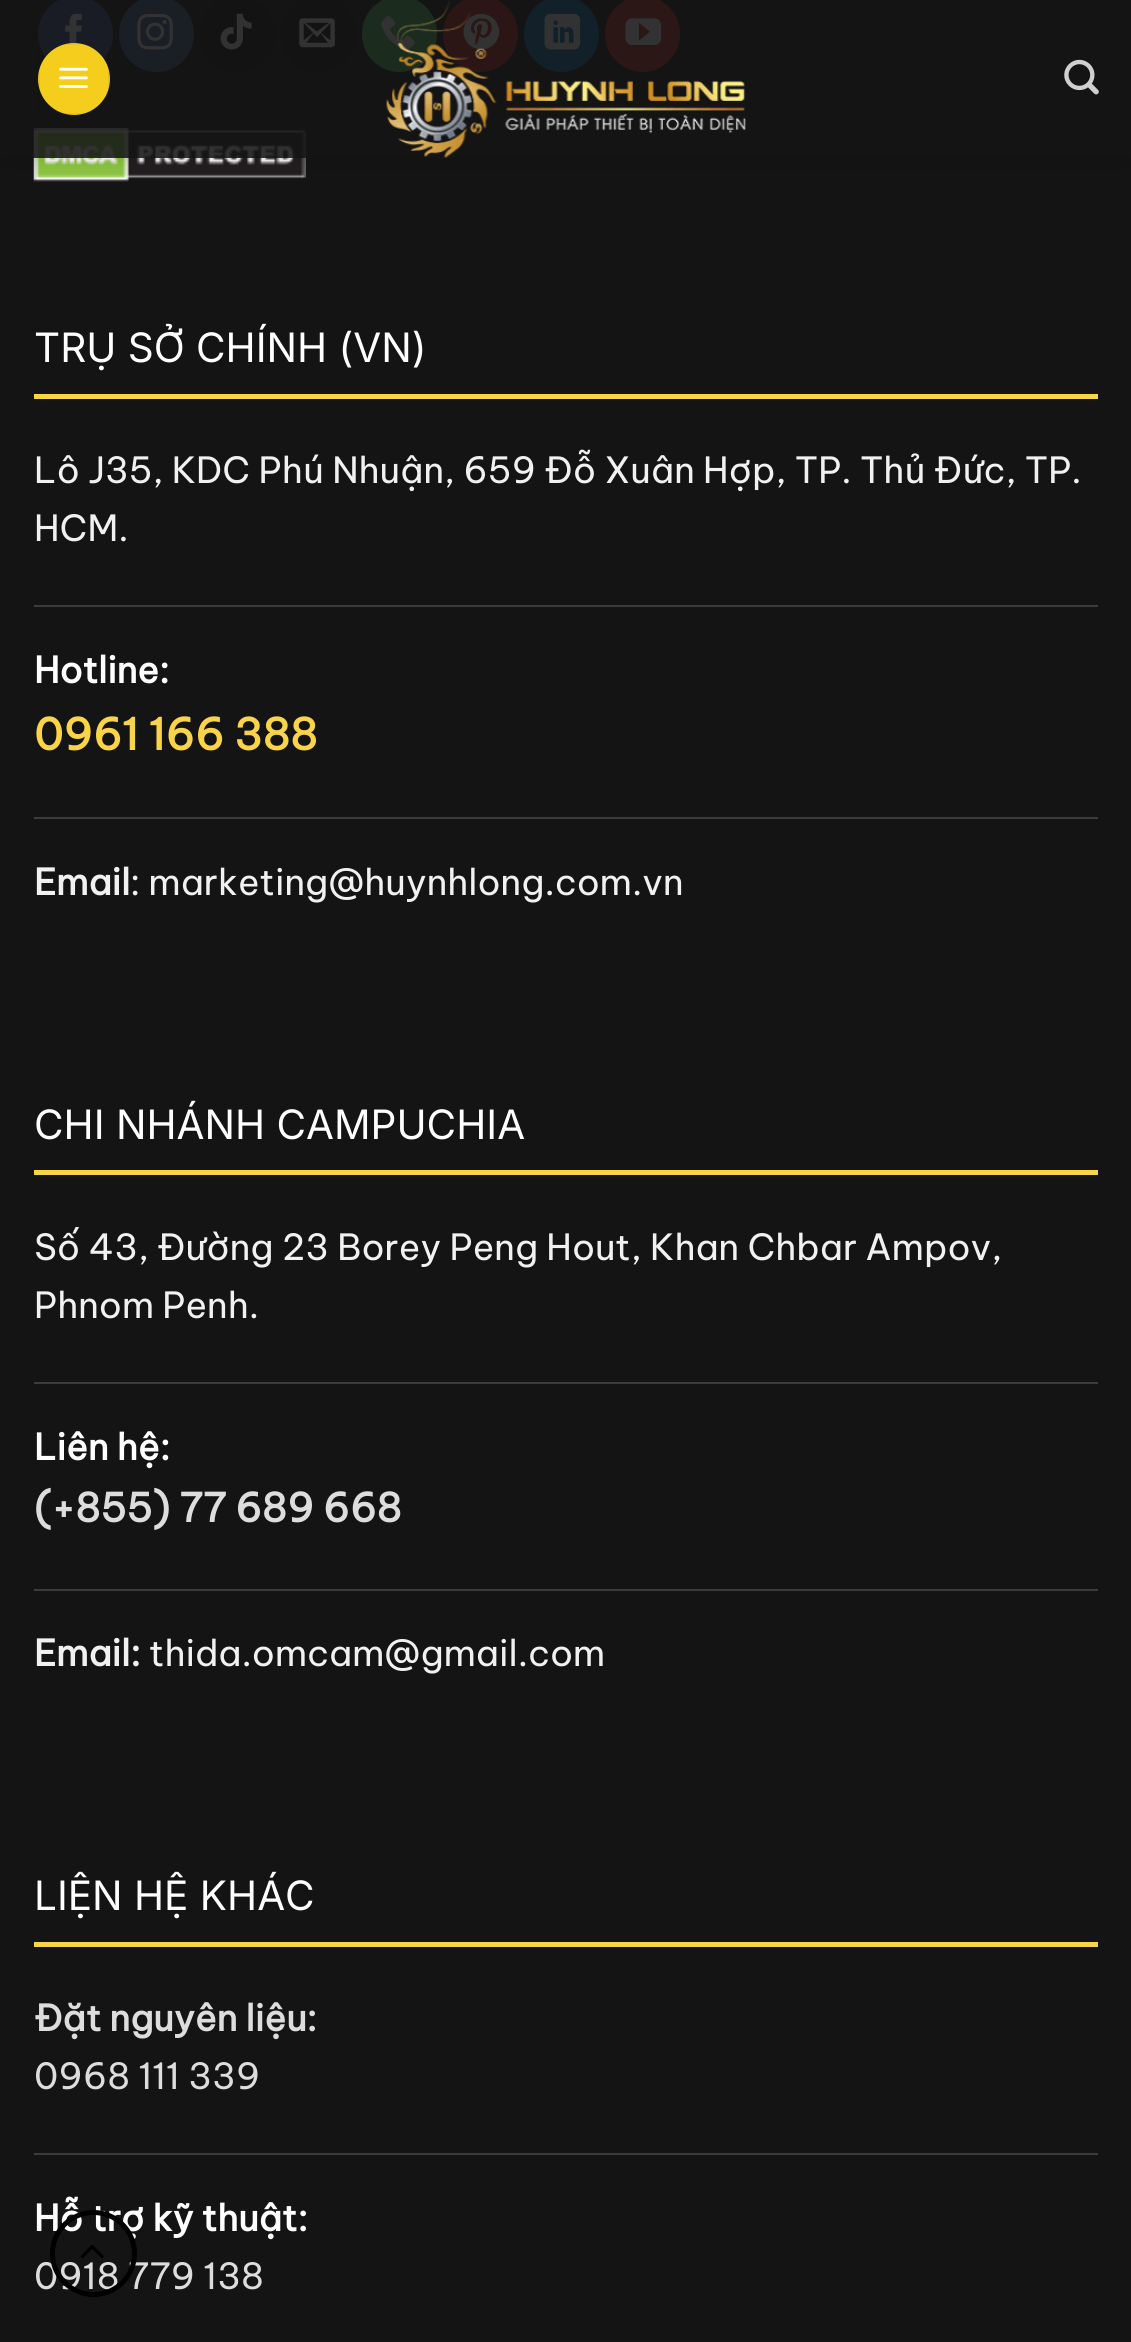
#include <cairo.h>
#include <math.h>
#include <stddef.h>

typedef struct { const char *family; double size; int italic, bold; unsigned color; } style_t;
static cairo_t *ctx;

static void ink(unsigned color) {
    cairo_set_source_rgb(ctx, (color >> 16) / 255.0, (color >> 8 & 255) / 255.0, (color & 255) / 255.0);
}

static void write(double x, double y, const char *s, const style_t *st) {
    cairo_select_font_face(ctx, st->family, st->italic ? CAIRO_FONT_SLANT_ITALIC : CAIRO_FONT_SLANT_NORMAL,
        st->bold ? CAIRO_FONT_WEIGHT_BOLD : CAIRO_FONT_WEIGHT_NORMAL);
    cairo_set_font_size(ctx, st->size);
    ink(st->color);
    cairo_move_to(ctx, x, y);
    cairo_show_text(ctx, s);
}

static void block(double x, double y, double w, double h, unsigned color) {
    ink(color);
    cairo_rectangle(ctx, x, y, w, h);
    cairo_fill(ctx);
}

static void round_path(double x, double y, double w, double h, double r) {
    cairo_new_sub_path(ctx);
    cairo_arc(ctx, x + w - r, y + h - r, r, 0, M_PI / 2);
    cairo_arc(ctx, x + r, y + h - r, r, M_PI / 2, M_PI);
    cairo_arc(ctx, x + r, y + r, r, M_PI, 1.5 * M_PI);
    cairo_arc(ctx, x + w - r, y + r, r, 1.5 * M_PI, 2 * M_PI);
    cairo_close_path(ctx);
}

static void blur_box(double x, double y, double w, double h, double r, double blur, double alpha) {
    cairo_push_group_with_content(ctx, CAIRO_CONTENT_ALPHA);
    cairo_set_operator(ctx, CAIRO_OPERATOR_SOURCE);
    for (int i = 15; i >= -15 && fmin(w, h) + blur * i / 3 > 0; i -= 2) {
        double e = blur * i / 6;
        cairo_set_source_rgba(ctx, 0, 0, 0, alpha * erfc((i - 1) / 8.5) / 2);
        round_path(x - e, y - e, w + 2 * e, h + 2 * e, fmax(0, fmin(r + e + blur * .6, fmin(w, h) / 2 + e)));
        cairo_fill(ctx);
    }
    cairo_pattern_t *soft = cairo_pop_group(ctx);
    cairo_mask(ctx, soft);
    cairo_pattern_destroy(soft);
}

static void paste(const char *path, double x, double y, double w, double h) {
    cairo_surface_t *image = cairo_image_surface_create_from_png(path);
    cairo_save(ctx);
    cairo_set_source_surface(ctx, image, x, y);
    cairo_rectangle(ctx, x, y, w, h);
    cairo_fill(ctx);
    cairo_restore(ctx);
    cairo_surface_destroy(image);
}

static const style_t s1 = {"Inter", 40.5, 0, 0, 0xffffff};
static const style_t s2 = {"Be Vietnam Pro", 36, 0, 0, 0xf1f1f1};
static const style_t s3 = {"Be Vietnam Pro", 36, 0, 1, 0xffffff};
static const style_t s4 = {"Be Vietnam Pro", 43.25, 0, 1, 0xf9d448};
static const style_t s5 = {"Be Vietnam Pro", 36, 0, 1, 0xf1f1f1};
static const style_t s6 = {"Be Vietnam Pro", 39.5, 0, 1, 0xdddddd};
static const style_t s7 = {"Be Vietnam Pro", 36, 0, 1, 0xdddddd};
static const style_t s8 = {"Be Vietnam Pro", 36, 0, 0, 0xdddddd};

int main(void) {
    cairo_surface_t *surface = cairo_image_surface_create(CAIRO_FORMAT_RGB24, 1131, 2342);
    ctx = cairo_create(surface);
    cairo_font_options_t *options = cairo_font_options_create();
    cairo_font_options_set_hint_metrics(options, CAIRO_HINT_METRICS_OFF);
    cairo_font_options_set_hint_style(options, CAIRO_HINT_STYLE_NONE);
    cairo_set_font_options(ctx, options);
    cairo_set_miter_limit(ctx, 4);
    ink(0x141414);
    cairo_paint(ctx);
    ink(0x3a589d);
    round_path(39, -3, 73, 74, 36.5);
    cairo_fill_preserve(ctx);
    cairo_stroke(ctx);
    paste("pic4.png", 65, 13, 17, 31);
    ink(0x3b6994);
    round_path(120, -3, 73, 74, 36.5);
    cairo_fill_preserve(ctx);
    cairo_stroke(ctx);
    paste("pic5.png", 137, 13, 36, 37);
    ink(0x111111);
    round_path(200, -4, 75, 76, 37.5);
    cairo_fill(ctx);
    paste("pic6.png", 220, 13, 32, 37);
    round_path(281, -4, 75, 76, 37.5);
    cairo_fill(ctx);
    paste("pic7.png", 299, 18, 36, 30);
    ink(0x51cb5a);
    round_path(363, -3, 73, 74, 36.5);
    cairo_fill_preserve(ctx);
    cairo_stroke(ctx);
    paste("pic8.png", 381, 16, 34, 34);
    ink(0xcb2320);
    round_path(444, -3, 73, 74, 36.5);
    cairo_fill_preserve(ctx);
    cairo_stroke(ctx);
    paste("pic9.png", 463, 13, 37, 37);
    ink(0x0072b7);
    round_path(525, -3, 73, 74, 36.5);
    cairo_fill_preserve(ctx);
    cairo_stroke(ctx);
    paste("pic10.png", 544, 13, 37, 37);
    ink(0xc33223);
    round_path(606, -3, 73, 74, 36.5);
    cairo_fill_preserve(ctx);
    cairo_stroke(ctx);
    paste("pic11.png", 625, 18, 37, 27);
    paste("pic12.png", 33, 128, 273, 54);
    cairo_save(ctx);
    cairo_set_fill_rule(ctx, CAIRO_FILL_RULE_EVEN_ODD);
    cairo_new_path(ctx);
    cairo_move_to(ctx, 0, 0);
    cairo_line_to(ctx, 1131, 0);
    cairo_line_to(ctx, 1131, 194);
    cairo_line_to(ctx, 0, 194);
    cairo_close_path(ctx);
    cairo_move_to(ctx, 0, 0);
    cairo_line_to(ctx, 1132, 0);
    cairo_line_to(ctx, 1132, 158);
    cairo_line_to(ctx, 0, 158);
    cairo_close_path(ctx);
    cairo_clip(ctx);
    ink(0x000000);
    blur_box(2, 2, 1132, 158, 0, 11, 0.15);
    cairo_restore(ctx);
    cairo_set_source_rgba(ctx, 0.078, 0.078, 0.078, 0.87);
    cairo_rectangle(ctx, 33, 0, 647, 158);
    cairo_fill(ctx);
    ink(0xf5ce1d);
    cairo_arc(ctx, 74, 79, 36, 0, 2 * M_PI);
    cairo_fill(ctx);
    cairo_rectangle(ctx, 39, 44, 70, 70);
    cairo_set_source_rgba(ctx, 0, 0, 0, 0.05);
    cairo_stroke(ctx);
    paste("pic1.png", 59, 67, 29, 21);
    paste("pic2.png", 386, 1, 360, 157);
    paste("pic3.png", 1064, 59, 35, 36);
    block(34, 394, 1064, 5, 0xf9d448);
    write(34, 362, "TRỤ SỞ CHÍNH (VN)", &s1);
    write(34, 483, "Lô J35, KDC Phú Nhuận, 659 Đỗ Xuân Hợp, TP. Thủ Đức, TP.", &s2);
    write(34, 541, "HCM.", &s2);
    block(34, 605, 1064, 2, 0x3c3c3c);
    write(34, 683, "Hotline:", &s3);
    write(34, 750, "0961 166 388", &s4);
    block(34, 817, 1064, 2, 0x3c3c3c);
    write(34, 895, "Email", &s5);
    write(130, 895, ": marketing@huynhlong.com.vn", &s2);
    block(34, 1170, 1064, 5, 0xf9d448);
    write(34, 1139, "CHI NHÁNH CAMPUCHIA", &s1);
    write(34, 1260, "Số 43, Đường 23 Borey Peng Hout, Khan Chbar Ampov,", &s2);
    write(34, 1318, "Phnom Penh.", &s2);
    block(34, 1382, 1064, 2, 0x3c3c3c);
    write(34, 1460, "Liên hệ:", &s3);
    write(34, 1522, "(+855) 77 689 668", &s6);
    block(34, 1589, 1064, 2, 0x3c3c3c);
    write(34, 1666, "Email:", &s5);
    write(149, 1666, "thida.omcam@gmail.com", &s2);
    block(34, 1942, 1064, 5, 0xf9d448);
    write(34, 1910, "LIỆN HỆ KHÁC", &s1);
    write(34, 2031, "Đặt nguyên liệu:", &s7);
    write(34, 2089, "0968 111 339", &s8);
    block(34, 2153, 1064, 2, 0x3c3c3c);
    write(34, 2231, "Hỗ trợ kỹ thuật:", &s3);
    write(34, 2289, "0918 779 138", &s8);
    cairo_new_path(ctx);
    cairo_arc(ctx, 93.5, 2253.5, 41, 0, 2 * M_PI);
    ink(0x000000);
    cairo_set_line_width(ctx, 5);
    cairo_stroke(ctx);
    paste("pic13.png", 80, 2245, 24, 14);
    cairo_surface_write_to_png(surface, "screenshot.png");
    cairo_font_options_destroy(options);
    cairo_destroy(ctx);
    cairo_surface_destroy(surface);
    return 0;
}
